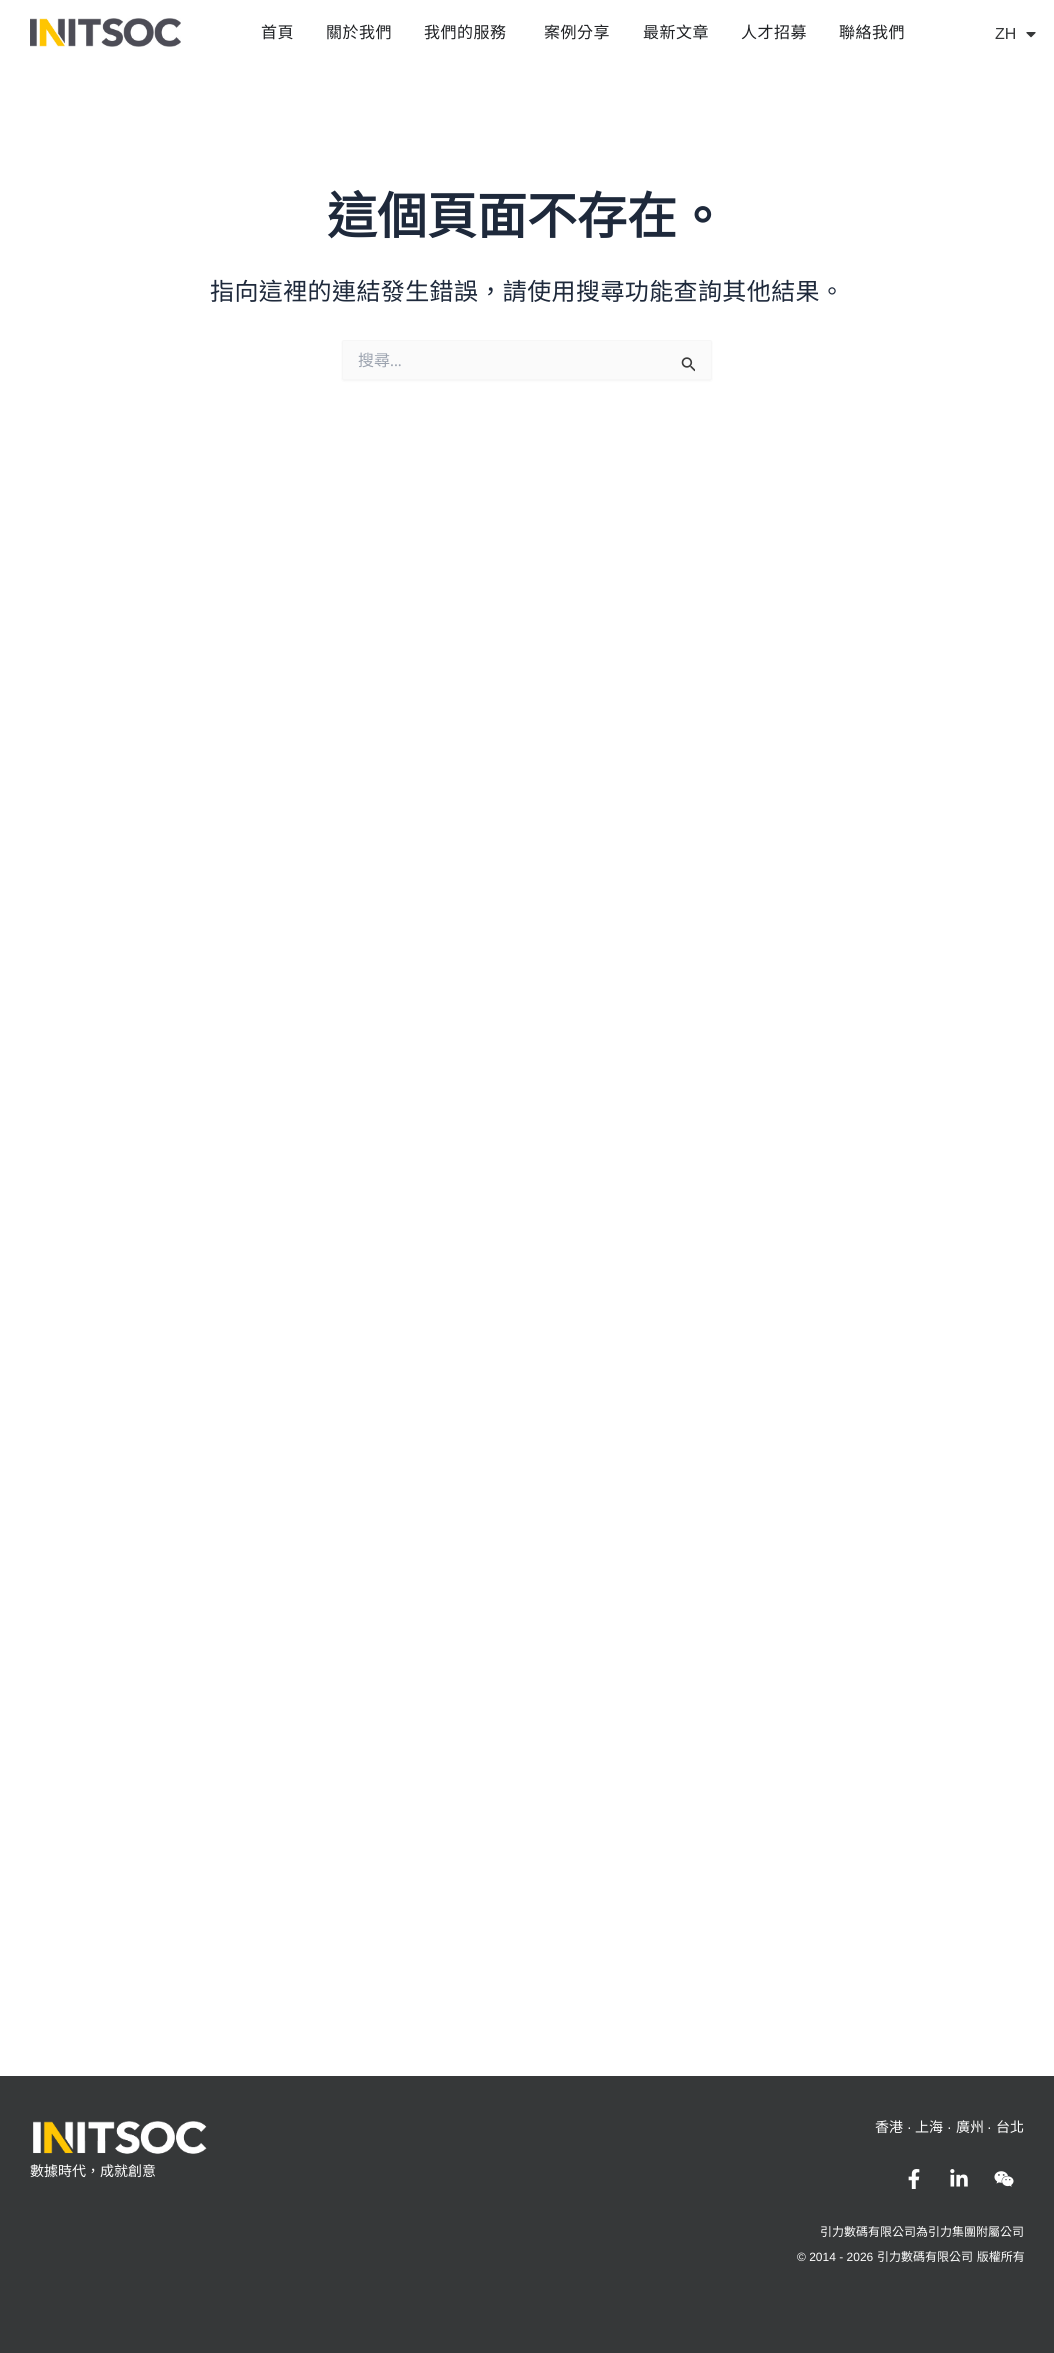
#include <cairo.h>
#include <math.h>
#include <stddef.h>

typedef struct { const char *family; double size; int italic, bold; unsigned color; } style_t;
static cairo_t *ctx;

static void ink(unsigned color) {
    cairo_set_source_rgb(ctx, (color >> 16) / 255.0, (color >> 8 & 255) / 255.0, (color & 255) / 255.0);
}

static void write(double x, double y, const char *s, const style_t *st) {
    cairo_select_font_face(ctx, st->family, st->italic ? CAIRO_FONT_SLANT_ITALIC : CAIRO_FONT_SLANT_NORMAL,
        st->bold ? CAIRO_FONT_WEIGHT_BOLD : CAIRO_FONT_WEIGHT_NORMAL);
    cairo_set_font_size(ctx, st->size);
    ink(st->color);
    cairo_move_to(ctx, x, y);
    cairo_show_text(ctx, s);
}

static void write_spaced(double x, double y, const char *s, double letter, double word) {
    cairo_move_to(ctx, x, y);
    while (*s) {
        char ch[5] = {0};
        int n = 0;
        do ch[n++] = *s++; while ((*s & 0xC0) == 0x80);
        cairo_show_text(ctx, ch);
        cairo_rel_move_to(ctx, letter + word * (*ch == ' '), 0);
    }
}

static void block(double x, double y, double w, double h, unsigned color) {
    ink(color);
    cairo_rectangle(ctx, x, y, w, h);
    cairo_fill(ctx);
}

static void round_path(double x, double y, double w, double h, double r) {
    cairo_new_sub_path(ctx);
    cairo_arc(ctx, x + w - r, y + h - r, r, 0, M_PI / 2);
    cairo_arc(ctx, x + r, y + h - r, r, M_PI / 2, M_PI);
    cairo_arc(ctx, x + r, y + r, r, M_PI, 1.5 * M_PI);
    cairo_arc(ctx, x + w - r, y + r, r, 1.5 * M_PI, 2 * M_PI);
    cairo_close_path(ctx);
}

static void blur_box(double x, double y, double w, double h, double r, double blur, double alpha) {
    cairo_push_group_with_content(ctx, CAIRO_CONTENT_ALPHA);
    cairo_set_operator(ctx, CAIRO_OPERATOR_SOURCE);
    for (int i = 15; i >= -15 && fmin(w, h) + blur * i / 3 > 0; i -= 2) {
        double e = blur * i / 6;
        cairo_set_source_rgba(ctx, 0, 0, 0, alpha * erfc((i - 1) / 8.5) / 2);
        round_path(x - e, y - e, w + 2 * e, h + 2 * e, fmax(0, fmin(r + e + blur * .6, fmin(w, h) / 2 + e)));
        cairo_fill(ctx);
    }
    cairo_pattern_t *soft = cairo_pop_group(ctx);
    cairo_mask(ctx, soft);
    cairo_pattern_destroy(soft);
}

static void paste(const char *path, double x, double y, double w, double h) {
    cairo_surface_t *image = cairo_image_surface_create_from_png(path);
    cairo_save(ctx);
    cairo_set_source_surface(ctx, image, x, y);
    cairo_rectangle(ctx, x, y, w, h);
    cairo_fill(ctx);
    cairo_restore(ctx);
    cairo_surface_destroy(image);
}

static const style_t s1 = {"Liberation Sans", 16, 0, 0, 0x363839};
static const style_t s2 = {"Noto Sans CJK TC", 50, 0, 1, 0x1e293b};
static const style_t s3 = {"Noto Sans CJK TC", 16, 0, 0, 0x9ca3af};
static const style_t s4 = {"Lora", 16, 0, 0, 0x9ca3af};
static const style_t s5 = {"Noto Sans CJK TC", 14, 0, 0, 0xffffff};
static const style_t s6 = {"Liberation Sans", 14, 0, 0, 0xffffff};
static const style_t s7 = {"Noto Sans CJK TC", 12, 0, 0, 0xffffff};
static const style_t s8 = {"Liberation Sans", 12, 0, 0, 0xffffff};

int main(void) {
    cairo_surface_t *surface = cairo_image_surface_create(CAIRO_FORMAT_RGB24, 1054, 2353);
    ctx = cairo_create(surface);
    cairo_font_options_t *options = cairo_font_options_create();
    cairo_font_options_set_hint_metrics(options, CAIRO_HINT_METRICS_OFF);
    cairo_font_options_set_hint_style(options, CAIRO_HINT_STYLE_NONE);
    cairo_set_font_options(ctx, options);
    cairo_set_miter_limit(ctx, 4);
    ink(0xffffff);
    cairo_paint(ctx);
    paste("pic1.png", 30, 18, 151, 29);
    cairo_select_font_face(ctx, "Noto Sans CJK TC", CAIRO_FONT_SLANT_NORMAL, CAIRO_FONT_WEIGHT_NORMAL);
    cairo_set_font_size(ctx, 16);
    ink(0x1f2124);
    write_spaced(261, 38, "首頁", 0.5, 0);
    write_spaced(326, 38, "關於我們", 0.5, 0);
    write_spaced(424, 38, "我們的服務", 0.5, 0);
    write_spaced(544, 38, "案例分享", 0.5, 0);
    write_spaced(643, 38, "最新文章", 0.5, 0);
    write_spaced(741, 38, "人才招募", 0.5, 0);
    write_spaced(839, 38, "聯絡我們", 0.5, 0);
    write(995, 39, "ZH", &s1);
    paste("pic2.png", 1026, 32, 10, 6);
    write(327, 234, "這個頁面不存在。", &s2);
    cairo_select_font_face(ctx, "Noto Sans CJK TC", CAIRO_FONT_SLANT_NORMAL, CAIRO_FONT_WEIGHT_NORMAL);
    cairo_set_font_size(ctx, 24);
    write_spaced(210, 300, "指向這裡的連結發生錯誤，請使用搜尋功能查詢其他結果。", 0.4, 0);
    ink(0x000000);
    blur_box(342, 341, 370, 40, 2, 1, 0.05);
    ink(0xfafafa);
    round_path(342.5, 340.5, 369, 39, 1.5);
    cairo_fill_preserve(ctx);
    ink(0xf6f6f6);
    cairo_set_line_width(ctx, 1);
    cairo_stroke(ctx);
    write(358, 366, "搜尋", &s3);
    write(390, 366, "...", &s4);
    paste("pic3.png", 681, 357, 14, 15);
    block(0, 2076, 1054, 277, 0x363839);
    paste("pic4.png", 33, 2121, 174, 33);
    write(30, 2176, "數據時代，成就創意", &s5);
    write(875, 2132, "香港", &s5);
    write(907, 2132, "·", &s6);
    write(915, 2132, "上海", &s5);
    write(947, 2132, "·", &s6);
    write(956, 2132, "廣州", &s5);
    write(987, 2132, "·", &s6);
    write(996, 2132, "台北", &s5);
    paste("pic5.png", 908, 2169, 12, 20);
    paste("pic6.png", 950, 2169, 18, 18);
    paste("pic7.png", 994, 2171, 20, 16);
    write(820, 2236, "引力數碼有限公司為引力集團附屬公司", &s7);
    write(797, 2261, "© 2014 - 2026", &s8);
    cairo_select_font_face(ctx, "Noto Sans CJK TC", CAIRO_FONT_SLANT_NORMAL, CAIRO_FONT_WEIGHT_NORMAL);
    write_spaced(877, 2261, "引力數碼有限公司 版權所有", 0, 1);
    cairo_surface_write_to_png(surface, "screenshot.png");
    cairo_font_options_destroy(options);
    cairo_destroy(ctx);
    cairo_surface_destroy(surface);
    return 0;
}
